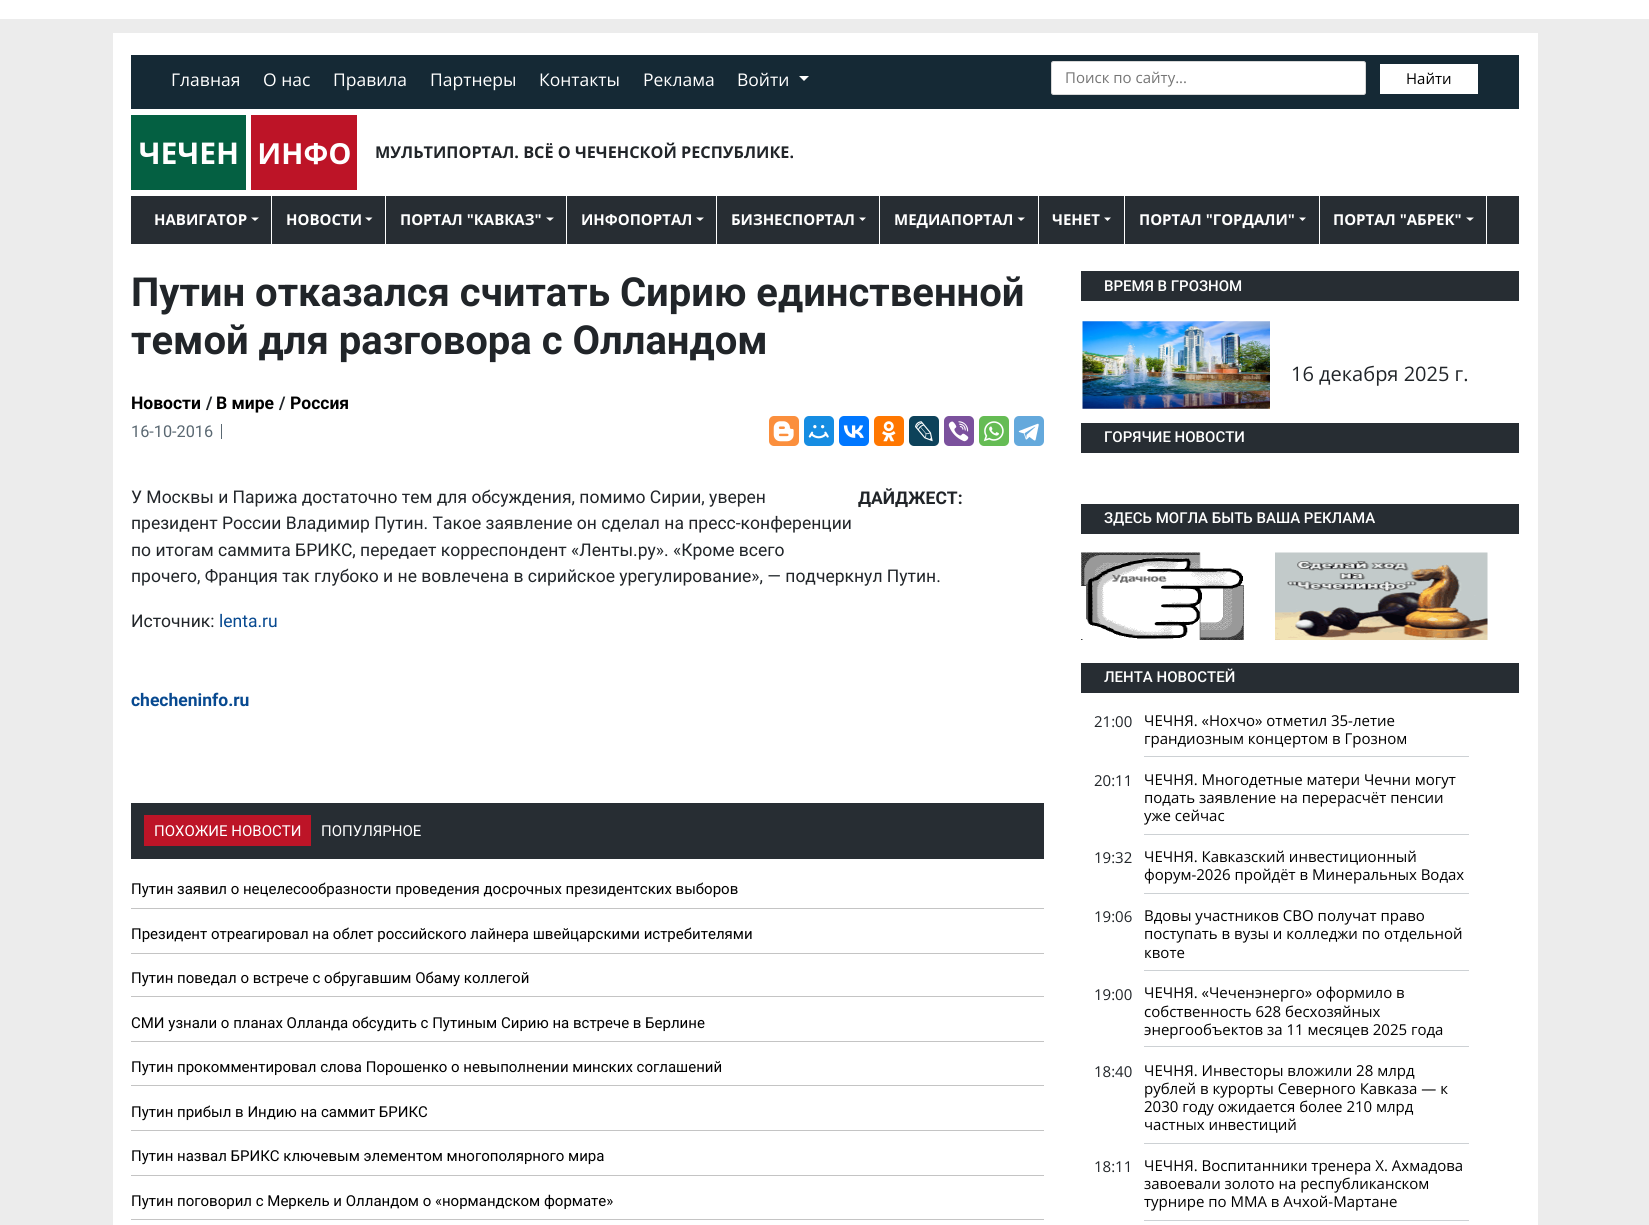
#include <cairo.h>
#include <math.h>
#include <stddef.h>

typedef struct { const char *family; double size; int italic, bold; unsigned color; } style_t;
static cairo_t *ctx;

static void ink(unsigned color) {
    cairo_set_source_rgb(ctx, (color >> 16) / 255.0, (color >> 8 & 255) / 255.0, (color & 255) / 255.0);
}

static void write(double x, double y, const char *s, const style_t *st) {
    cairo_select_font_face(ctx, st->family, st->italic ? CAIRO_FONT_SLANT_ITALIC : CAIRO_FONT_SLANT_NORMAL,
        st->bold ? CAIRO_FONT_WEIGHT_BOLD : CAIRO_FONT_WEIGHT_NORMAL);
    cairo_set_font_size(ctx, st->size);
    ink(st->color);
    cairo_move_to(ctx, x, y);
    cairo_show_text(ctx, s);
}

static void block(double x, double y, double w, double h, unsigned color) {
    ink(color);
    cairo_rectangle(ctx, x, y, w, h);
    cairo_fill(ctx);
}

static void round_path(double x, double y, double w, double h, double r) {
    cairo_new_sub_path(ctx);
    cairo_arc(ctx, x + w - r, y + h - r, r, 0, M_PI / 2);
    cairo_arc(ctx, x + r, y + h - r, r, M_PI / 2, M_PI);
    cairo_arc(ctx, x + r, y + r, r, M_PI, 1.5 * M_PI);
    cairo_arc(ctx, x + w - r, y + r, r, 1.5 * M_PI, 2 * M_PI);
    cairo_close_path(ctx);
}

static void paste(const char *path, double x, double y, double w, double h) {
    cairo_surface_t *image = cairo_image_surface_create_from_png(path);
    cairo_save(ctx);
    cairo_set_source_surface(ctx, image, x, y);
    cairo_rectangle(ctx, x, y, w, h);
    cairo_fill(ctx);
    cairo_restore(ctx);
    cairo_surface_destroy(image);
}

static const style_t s1 = {"Open Sans", 17.5, 0, 0, 0xffffff};
static const style_t s2 = {"Open Sans", 15, 0, 0, 0x757575};
static const style_t s3 = {"Open Sans", 15, 0, 0, 0x000000};
static const style_t s4 = {"Open Sans", 16.25, 0, 1, 0x212529};
static const style_t s5 = {"Open Sans", 15, 0, 1, 0xffffff};
static const style_t s6 = {"Roboto", 40, 0, 1, 0x212529};
static const style_t s7 = {"Roboto", 17.5, 0, 1, 0x000000};
static const style_t s8 = {"Roboto", 17.5, 0, 1, 0x212529};
static const style_t s9 = {"Roboto", 16.25, 0, 0, 0x5a6872};
static const style_t s10 = {"Roboto", 17.5, 0, 0, 0x212529};
static const style_t s11 = {"Roboto", 17.5, 0, 0, 0x074990};
static const style_t s12 = {"Roboto", 17.5, 0, 1, 0x074990};
static const style_t s13 = {"Roboto", 15, 0, 0, 0xffffff};
static const style_t s14 = {"Roboto", 15, 0, 0, 0x000000};
static const style_t s15 = {"Roboto Medium", 15, 0, 0, 0xffffff};
static const style_t s16 = {"Open Sans", 20, 0, 0, 0x212529};
static const style_t s17 = {"Open Sans", 15, 0, 0, 0x212529};

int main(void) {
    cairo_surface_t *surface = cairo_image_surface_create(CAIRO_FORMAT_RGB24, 1649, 1225);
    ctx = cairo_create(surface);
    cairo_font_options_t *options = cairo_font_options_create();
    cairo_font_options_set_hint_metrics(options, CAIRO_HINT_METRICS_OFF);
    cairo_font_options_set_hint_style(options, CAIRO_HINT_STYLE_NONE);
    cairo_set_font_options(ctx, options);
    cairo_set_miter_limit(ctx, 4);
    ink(0xececec);
    cairo_paint(ctx);
    block(0, 0, 1649, 19, 0xffffff);
    block(113, 33, 1425, 1192, 0xffffff);
    block(131, 55, 1388, 54, 0x152935);
    write(171, 86, "Главная", &s1);
    write(263, 86, "О нас", &s1);
    write(333, 86, "Правила", &s1);
    write(430, 86, "Партнеры", &s1);
    write(539, 86, "Контакты", &s1);
    write(643, 86, "Реклама", &s1);
    write(737, 86, "Войти", &s1);
    cairo_new_path(ctx);
    cairo_move_to(ctx, 799, 76);
    cairo_line_to(ctx, 809, 76);
    cairo_line_to(ctx, 804, 81);
    cairo_close_path(ctx);
    cairo_fill(ctx);
    round_path(1051.5, 61.5, 314, 33, 2);
    cairo_fill_preserve(ctx);
    ink(0xd7d7d7);
    cairo_set_line_width(ctx, 1);
    cairo_stroke(ctx);
    write(1065, 83, "Поиск по сайту...", &s2);
    block(1380, 64, 98, 30, 0xffffff);
    write(1406, 84, "Найти", &s3);
    paste("pic1.png", 131, 115, 226, 75);
    write(375, 158, "МУЛЬТИПОРТАЛ. ВСЁ О ЧЕЧЕНСКОЙ РЕСПУБЛИКЕ.", &s4);
    block(131, 196, 1388, 48, 0x272d33);
    write(154, 225, "НАВИГАТОР", &s5);
    cairo_new_path(ctx);
    cairo_move_to(ctx, 251, 217.5);
    cairo_line_to(ctx, 259, 217.5);
    cairo_line_to(ctx, 255, 221);
    cairo_close_path(ctx);
    cairo_fill(ctx);
    block(271, 196, 1, 48, 0xffffff);
    write(286, 225, "НОВОСТИ", &s5);
    cairo_new_path(ctx);
    cairo_move_to(ctx, 365, 217.5);
    cairo_line_to(ctx, 372.5, 217.5);
    cairo_line_to(ctx, 369, 221);
    cairo_close_path(ctx);
    cairo_fill(ctx);
    block(385, 196, 1, 48, 0xffffff);
    write(400, 225, "ПОРТАЛ \"КАВКАЗ\"", &s5);
    cairo_new_path(ctx);
    cairo_move_to(ctx, 546, 217.5);
    cairo_line_to(ctx, 554, 217.5);
    cairo_line_to(ctx, 550, 221);
    cairo_close_path(ctx);
    cairo_fill(ctx);
    block(566, 196, 1, 48, 0xffffff);
    write(581, 225, "ИНФОПОРТАЛ", &s5);
    cairo_new_path(ctx);
    cairo_move_to(ctx, 696, 217.5);
    cairo_line_to(ctx, 704, 217.5);
    cairo_line_to(ctx, 700, 221);
    cairo_close_path(ctx);
    cairo_fill(ctx);
    block(716, 196, 1, 48, 0xffffff);
    write(731, 225, "БИЗНЕСПОРТАЛ", &s5);
    cairo_new_path(ctx);
    cairo_move_to(ctx, 859, 217.5);
    cairo_line_to(ctx, 866, 217.5);
    cairo_line_to(ctx, 862.5, 221);
    cairo_close_path(ctx);
    cairo_fill(ctx);
    block(879, 196, 1, 48, 0xffffff);
    write(894, 225, "МЕДИАПОРТАЛ", &s5);
    cairo_new_path(ctx);
    cairo_move_to(ctx, 1017.5, 217.5);
    cairo_line_to(ctx, 1025, 217.5);
    cairo_line_to(ctx, 1021, 221);
    cairo_close_path(ctx);
    cairo_fill(ctx);
    block(1038, 196, 1, 48, 0xffffff);
    write(1052, 225, "ЧЕНЕТ", &s5);
    cairo_new_path(ctx);
    cairo_move_to(ctx, 1104, 217.5);
    cairo_line_to(ctx, 1111, 217.5);
    cairo_line_to(ctx, 1107.5, 221);
    cairo_close_path(ctx);
    cairo_fill(ctx);
    block(1124, 196, 1, 48, 0xffffff);
    write(1139, 225, "ПОРТАЛ \"ГОРДАЛИ\"", &s5);
    cairo_new_path(ctx);
    cairo_move_to(ctx, 1299, 217.5);
    cairo_line_to(ctx, 1306, 217.5);
    cairo_line_to(ctx, 1302.5, 221);
    cairo_close_path(ctx);
    cairo_fill(ctx);
    block(1319, 196, 1, 48, 0xffffff);
    write(1333, 225, "ПОРТАЛ \"АБРЕК\"", &s5);
    cairo_new_path(ctx);
    cairo_move_to(ctx, 1466, 217.5);
    cairo_line_to(ctx, 1474, 217.5);
    cairo_line_to(ctx, 1470, 221);
    cairo_close_path(ctx);
    cairo_fill(ctx);
    block(1486, 196, 1, 48, 0xffffff);
    write(131, 306, "Путин отказался считать Сирию единственной", &s6);
    write(131, 354, "темой для разговора с Олландом", &s6);
    write(131, 409, "Новости", &s7);
    write(206, 409, "/", &s8);
    write(216, 409, "В мире", &s7);
    write(279, 409, "/", &s8);
    write(290, 409, "Россия", &s7);
    write(131, 437, "16-10-2016", &s9);
    block(221, 424, 1, 15, 0x5a6872);
    ink(0xfb8f3d);
    round_path(769, 416, 30, 30, 5);
    cairo_fill(ctx);
    paste("pic2.png", 773, 421, 21, 21);
    ink(0x168de2);
    round_path(804, 416, 30, 30, 5);
    cairo_fill(ctx);
    paste("pic3.png", 808, 425, 21, 14);
    ink(0x0077ff);
    round_path(839, 416, 30, 30, 5);
    cairo_fill(ctx);
    paste("pic4.png", 843, 425, 21, 13);
    ink(0xff7700);
    round_path(874, 416, 30, 30, 5);
    cairo_fill(ctx);
    paste("pic5.png", 882, 421, 14, 21);
    ink(0x0d425a);
    round_path(909, 416, 30, 30, 5);
    cairo_fill(ctx);
    paste("pic6.png", 915, 421, 18, 21);
    ink(0x7b519d);
    round_path(944, 416, 30, 30, 5);
    cairo_fill(ctx);
    paste("pic7.png", 948, 421, 21, 21);
    ink(0x65bc54);
    round_path(979, 416, 30, 30, 5);
    cairo_fill(ctx);
    paste("pic8.png", 983, 421, 21, 21);
    ink(0x64a9dc);
    round_path(1014, 416, 30, 30, 5);
    cairo_fill(ctx);
    paste("pic9.png", 1018, 423, 21, 18);
    write(131, 503, "У Москвы и Парижа достаточно тем для обсуждения, помимо Сирии, уверен", &s10);
    write(858, 504, "ДАЙДЖЕСТ:", &s8);
    write(131, 529, "президент России Владимир Путин. Такое заявление он сделал на пресс-конференции", &s10);
    write(131, 556, "по итогам саммита БРИКС, передает корреспондент «Ленты.ру». «Кроме всего", &s10);
    write(131, 582, "прочего, Франция так глубоко и не вовлечена в сирийское урегулирование», — подчеркнул Путин.", &s10);
    write(131, 627, "Источник:", &s10);
    write(219, 627, "lenta.ru", &s11);
    write(131, 706, "checheninfo.ru", &s12);
    block(131, 803, 913, 56, 0x272d33);
    block(144, 815, 167, 31, 0xbd1427);
    write(154, 836, "ПОХОЖИЕ НОВОСТИ", &s13);
    write(321, 836, "ПОПУЛЯРНОЕ", &s13);
    write(131, 894, "Путин заявил о нецелесообразности проведения досрочных президентских выборов", &s14);
    block(131, 908, 913, 1, 0xc4c4c4);
    write(131, 939, "Президент отреагировал на облет российского лайнера швейцарскими истребителями", &s14);
    block(131, 953, 913, 1, 0xc4c4c4);
    write(131, 983, "Путин поведал о встрече с обругавшим Обаму коллегой", &s14);
    block(131, 996, 913, 1, 0xc4c4c4);
    write(131, 1028, "СМИ узнали о планах Олланда обсудить с Путиным Сирию на встрече в Берлине", &s14);
    block(131, 1041, 913, 1, 0xc4c4c4);
    write(131, 1072, "Путин прокомментировал слова Порошенко о невыполнении минских соглашений", &s14);
    block(131, 1085, 913, 1, 0xc4c4c4);
    write(131, 1117, "Путин прибыл в Индию на саммит БРИКС", &s14);
    block(131, 1130, 913, 1, 0xc4c4c4);
    write(131, 1161, "Путин назвал БРИКС ключевым элементом многополярного мира", &s14);
    block(131, 1175, 913, 1, 0xc4c4c4);
    write(131, 1206, "Путин поговорил с Меркель и Олландом о «нормандском формате»", &s14);
    block(131, 1219, 913, 1, 0xc4c4c4);
    block(1081, 271, 438, 30, 0x272d33);
    write(1104, 291, "ВРЕМЯ В ГРОЗНОМ", &s15);
    paste("pic10.png", 1082, 321, 188, 88);
    write(1291, 381, "16 декабря 2025 г.", &s16);
    block(1081, 423, 438, 30, 0x272d33);
    write(1104, 442, "ГОРЯЧИЕ НОВОСТИ", &s15);
    block(1081, 504, 438, 30, 0x272d33);
    write(1104, 523, "ЗДЕСЬ МОГЛА БЫТЬ ВАША РЕКЛАМА", &s15);
    paste("pic11.png", 1081, 552, 163, 88);
    paste("pic12.png", 1275, 552, 213, 88);
    block(1081, 663, 438, 30, 0x272d33);
    write(1104, 682, "ЛЕНТА НОВОСТЕЙ", &s15);
    write(1094, 727, "21:00", &s17);
    write(1144, 726, "ЧЕЧНЯ. «Нохчо» отметил 35-летие", &s3);
    write(1144, 744, "грандиозным концертом в Грозном", &s3);
    block(1144, 756, 325, 1, 0xcdd1d4);
    write(1094, 786, "20:11", &s17);
    write(1144, 785, "ЧЕЧНЯ. Многодетные матери Чечни могут", &s3);
    write(1144, 803, "подать заявление на перерасчёт пенсии", &s3);
    write(1144, 821, "уже сейчас", &s3);
    block(1144, 834, 325, 1, 0xcdd1d4);
    write(1094, 863, "19:32", &s17);
    write(1144, 862, "ЧЕЧНЯ. Кавказский инвестиционный", &s3);
    write(1144, 880, "форум-2026 пройдёт в Минеральных Водах", &s3);
    block(1144, 893, 325, 1, 0xcdd1d4);
    write(1094, 922, "19:06", &s17);
    write(1144, 921, "Вдовы участников СВО получат право", &s3);
    write(1144, 939, "поступать в вузы и колледжи по отдельной", &s3);
    write(1144, 958, "квоте", &s3);
    block(1144, 970, 325, 1, 0xcdd1d4);
    write(1094, 1000, "19:00", &s17);
    write(1144, 998, "ЧЕЧНЯ. «Чеченэнерго» оформило в", &s3);
    write(1144, 1017, "собственность 628 бесхозяйных", &s3);
    write(1144, 1035, "энергообъектов за 11 месяцев 2025 года", &s3);
    block(1144, 1046, 325, 1, 0xcdd1d4);
    write(1094, 1077, "18:40", &s17);
    write(1144, 1076, "ЧЕЧНЯ. Инвесторы вложили 28 млрд", &s3);
    write(1144, 1094, "рублей в курорты Северного Кавказа — к", &s3);
    write(1144, 1112, "2030 году ожидается более 210 млрд", &s3);
    write(1144, 1130, "частных инвестиций", &s3);
    block(1144, 1143, 325, 1, 0xcdd1d4);
    write(1094, 1172, "18:11", &s17);
    write(1144, 1171, "ЧЕЧНЯ. Воспитанники тренера Х. Ахмадова", &s3);
    write(1144, 1189, "завоевали золото на республиканском", &s3);
    write(1144, 1207, "турнире по ММА в Ачхой-Мартане", &s3);
    block(1144, 1220, 325, 1, 0xcdd1d4);
    cairo_surface_write_to_png(surface, "screenshot.png");
    cairo_font_options_destroy(options);
    cairo_destroy(ctx);
    cairo_surface_destroy(surface);
    return 0;
}
